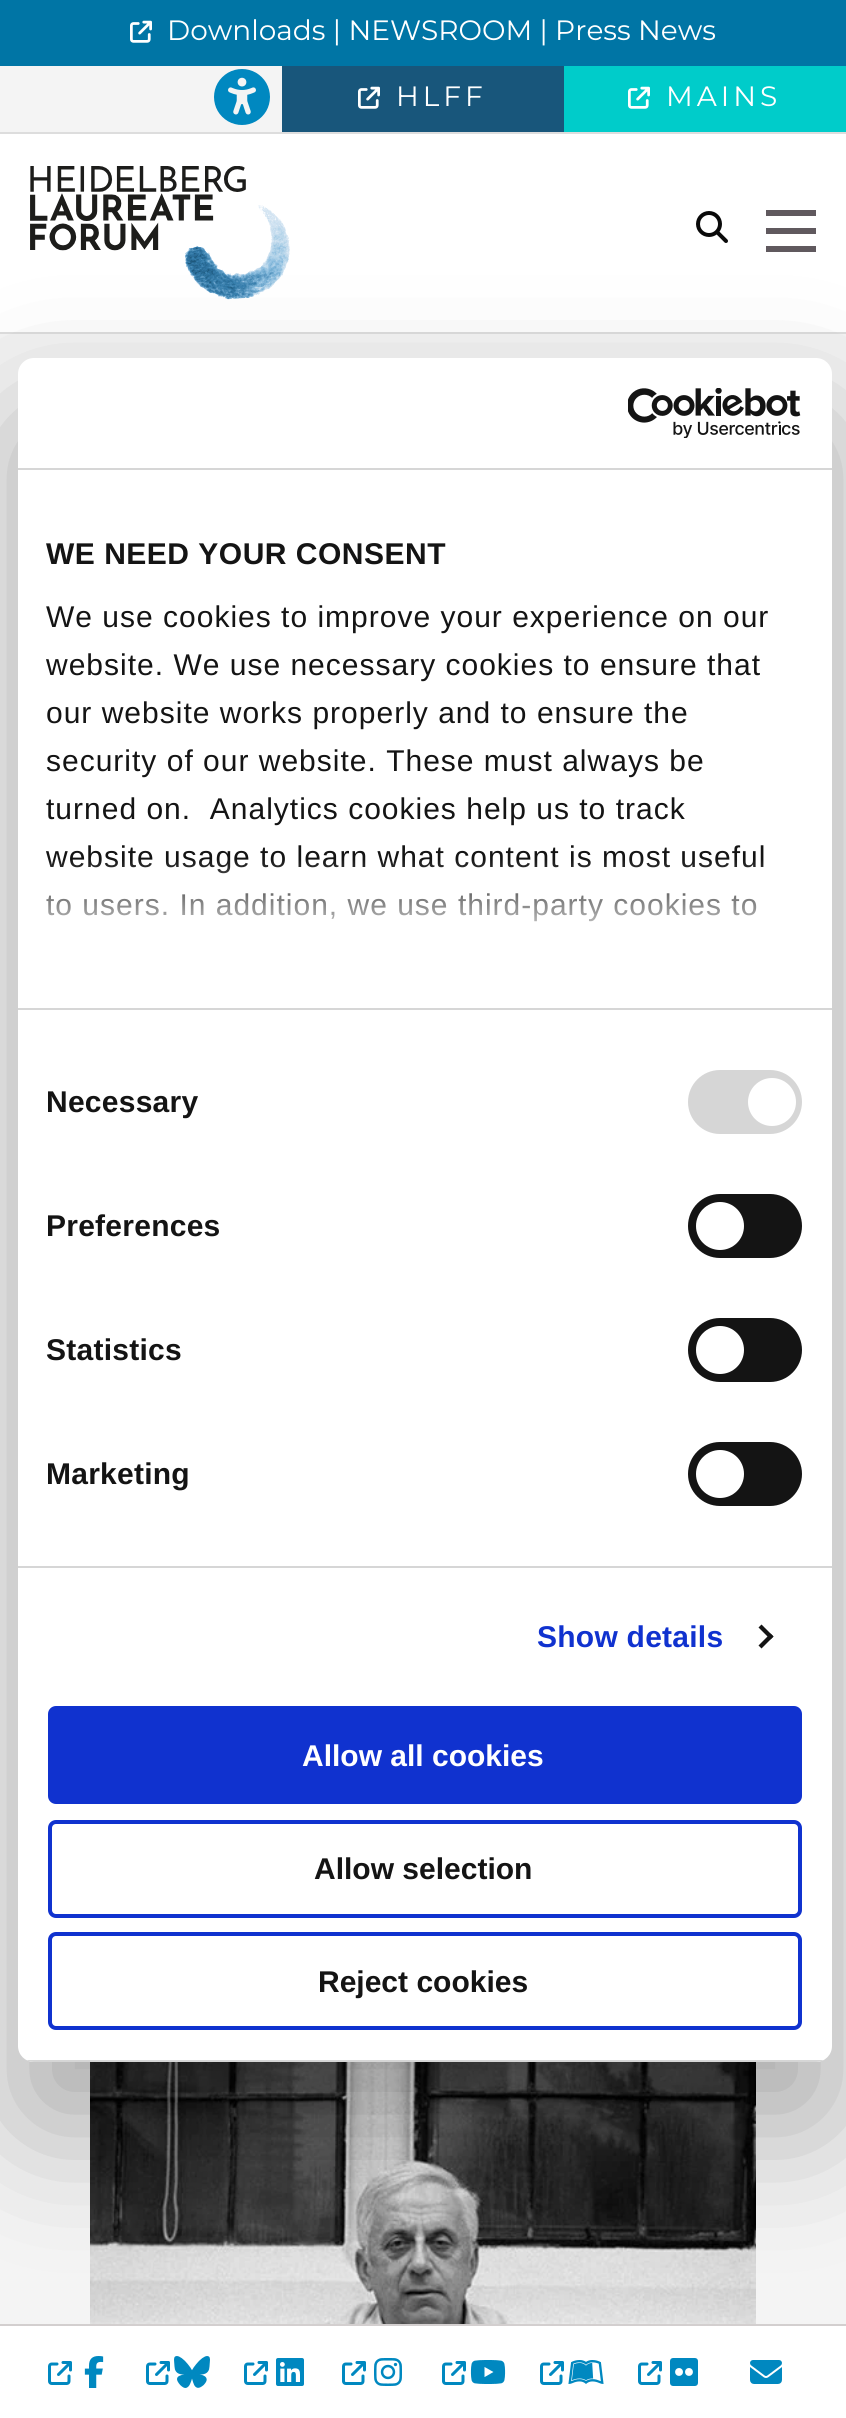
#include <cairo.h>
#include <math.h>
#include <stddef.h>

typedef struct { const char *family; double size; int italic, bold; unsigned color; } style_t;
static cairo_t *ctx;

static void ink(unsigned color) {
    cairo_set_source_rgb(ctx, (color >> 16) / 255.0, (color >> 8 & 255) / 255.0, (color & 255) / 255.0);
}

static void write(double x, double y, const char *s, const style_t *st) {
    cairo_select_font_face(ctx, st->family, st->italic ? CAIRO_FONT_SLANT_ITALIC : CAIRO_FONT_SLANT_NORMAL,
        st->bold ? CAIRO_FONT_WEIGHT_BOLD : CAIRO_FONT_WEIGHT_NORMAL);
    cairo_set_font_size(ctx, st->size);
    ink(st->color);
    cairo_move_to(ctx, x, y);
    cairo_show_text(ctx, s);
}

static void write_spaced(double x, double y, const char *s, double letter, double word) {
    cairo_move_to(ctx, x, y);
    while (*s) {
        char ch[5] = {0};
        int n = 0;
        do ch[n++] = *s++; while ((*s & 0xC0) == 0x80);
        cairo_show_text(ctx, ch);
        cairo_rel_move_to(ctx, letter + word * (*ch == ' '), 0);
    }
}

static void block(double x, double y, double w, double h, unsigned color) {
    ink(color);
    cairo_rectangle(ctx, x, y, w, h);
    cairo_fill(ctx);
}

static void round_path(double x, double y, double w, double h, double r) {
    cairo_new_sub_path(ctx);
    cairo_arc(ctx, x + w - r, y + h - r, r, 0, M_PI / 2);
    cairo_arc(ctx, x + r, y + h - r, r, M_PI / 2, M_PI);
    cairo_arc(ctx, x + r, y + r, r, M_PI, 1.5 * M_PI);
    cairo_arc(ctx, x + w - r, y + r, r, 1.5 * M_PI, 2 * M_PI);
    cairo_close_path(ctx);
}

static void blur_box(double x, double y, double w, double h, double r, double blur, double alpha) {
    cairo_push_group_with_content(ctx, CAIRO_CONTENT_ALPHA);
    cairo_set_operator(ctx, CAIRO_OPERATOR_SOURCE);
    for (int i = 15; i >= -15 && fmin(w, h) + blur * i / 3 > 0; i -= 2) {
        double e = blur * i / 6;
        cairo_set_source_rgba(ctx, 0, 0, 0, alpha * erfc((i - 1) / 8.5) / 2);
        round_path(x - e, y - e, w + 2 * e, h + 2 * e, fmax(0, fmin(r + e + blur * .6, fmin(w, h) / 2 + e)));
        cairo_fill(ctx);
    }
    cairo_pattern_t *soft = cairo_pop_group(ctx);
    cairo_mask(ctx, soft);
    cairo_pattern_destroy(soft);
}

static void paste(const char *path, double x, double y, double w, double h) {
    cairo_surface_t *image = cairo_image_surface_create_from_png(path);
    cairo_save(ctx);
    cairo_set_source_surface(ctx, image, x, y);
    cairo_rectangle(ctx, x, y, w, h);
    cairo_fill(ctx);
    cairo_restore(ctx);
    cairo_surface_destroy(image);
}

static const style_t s1 = {"Montserrat Thin", 28, 0, 0, 0xffffff};
static const style_t s2 = {"Liberation Sans", 30, 0, 1, 0xffffff};
static const style_t s3 = {"Liberation Sans", 30, 0, 1, 0x141414};

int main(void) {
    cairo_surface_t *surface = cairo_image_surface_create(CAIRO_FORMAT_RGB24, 846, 2418);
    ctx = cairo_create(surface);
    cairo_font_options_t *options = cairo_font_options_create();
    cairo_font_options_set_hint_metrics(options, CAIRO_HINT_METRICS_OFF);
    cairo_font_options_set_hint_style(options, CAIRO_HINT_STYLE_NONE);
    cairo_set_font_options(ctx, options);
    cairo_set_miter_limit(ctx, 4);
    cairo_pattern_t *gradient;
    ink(0xffffff);
    cairo_paint(ctx);
    block(0, 332, 846, 2, 0xdddddd);
    block(0, 66, 282, 66, 0xf4f4f4);
    block(0, 132, 846, 2, 0xdddddd);
    block(0, 0, 846, 66, 0x0075a5);
    paste("pic1.png", 130, 20, 22, 23);
    write(167, 40, "Downloads | NEWSROOM | Press News", &s1);
    paste("pic2.png", 214, 69, 56, 56);
    block(282, 66, 282, 66, 0x18567b);
    paste("pic3.png", 358, 86, 22, 23);
    ink(0xffffff);
    write_spaced(396, 106, "HLFF", 4, 0);
    block(564, 66, 282, 66, 0x00ccca);
    paste("pic4.png", 628, 86, 22, 23);
    ink(0xffffff);
    write_spaced(666, 106, "MAINS", 4, 0);
    paste("pic5.png", 30, 166, 260, 134);
    paste("pic6.png", 696, 211, 32, 32);
    block(766, 228, 50, 6, 0x60595e);
    block(766, 210, 50, 6, 0x60595e);
    block(766, 246, 50, 6, 0x60595e);
    block(0, 334, 846, 1990, 0xf4f4f4);
    paste("pic7.png", 90, 2062, 666, 262);
    block(0, 2324, 846, 2, 0xd3cfcf);
    ink(0x000000);
    blur_box(18, 422, 814, 1704, 16, 68, 0.3);
    ink(0xffffff);
    round_path(18, 358, 814, 1704, 16);
    cairo_fill(ctx);
    block(18, 468, 814, 2, 0xd6d6d6);
    paste("pic8.png", 628, 388, 173, 50);
    block(18, 1008, 814, 2, 0xd6d6d6);
    cairo_select_font_face(ctx, "Liberation Sans", CAIRO_FONT_SLANT_NORMAL, CAIRO_FONT_WEIGHT_BOLD);
    cairo_set_font_size(ctx, 30);
    ink(0x141414);
    write_spaced(46, 564, "WE NEED YOUR CONSENT", 0.5, 0);
    cairo_select_font_face(ctx, "Liberation Sans", CAIRO_FONT_SLANT_NORMAL, CAIRO_FONT_WEIGHT_NORMAL);
    write_spaced(46, 627, "We use cookies to improve your experience on our", 1, 0);
    write_spaced(46, 675, "website. We use necessary cookies to ensure that", 1, 0);
    write_spaced(46, 723, "our website works properly and to ensure the", 1, 0);
    write_spaced(46, 771, "security of our website. These must always be", 1, 0);
    write_spaced(46, 819, "turned on.  Analytics cookies help us to track", 1, 0);
    write_spaced(46, 867, "website usage to learn what content is most useful", 1, 0);
    write_spaced(46, 915, "to users. In addition, we use third-party cookies to", 1, 0);
    gradient = cairo_pattern_create_linear(411, 1008, 411, 858);
    cairo_pattern_add_color_stop_rgba(gradient, 0, 1, 1, 1, 1);
    cairo_pattern_add_color_stop_rgba(gradient, 0.5, 1, 1, 1, 0.8);
    cairo_pattern_add_color_stop_rgba(gradient, 1, 1, 1, 1, 0);
    cairo_set_source(ctx, gradient);
    cairo_pattern_destroy(gradient);
    cairo_rectangle(ctx, 46, 860, 718, 62);
    cairo_fill(ctx);
    block(18, 1566, 814, 2, 0xd6d6d6);
    cairo_select_font_face(ctx, "Liberation Sans", CAIRO_FONT_SLANT_NORMAL, CAIRO_FONT_WEIGHT_BOLD);
    ink(0x141414);
    write_spaced(46, 1112, "Necessary", 0.25, 0);
    ink(0xd6d6d6);
    round_path(688, 1070, 114, 64, 32);
    cairo_fill(ctx);
    ink(0xffffff);
    cairo_arc(ctx, 772, 1102, 24, 0, 2 * M_PI);
    cairo_fill(ctx);
    ink(0x141414);
    write_spaced(46, 1236, "Preferences", 0.25, 0);
    round_path(688, 1194, 114, 64, 32);
    cairo_fill(ctx);
    ink(0xffffff);
    cairo_arc(ctx, 720, 1226, 24, 0, 2 * M_PI);
    cairo_fill(ctx);
    ink(0x141414);
    write_spaced(46, 1360, "Statistics", 0.25, 0);
    round_path(688, 1318, 114, 64, 32);
    cairo_fill(ctx);
    ink(0xffffff);
    cairo_arc(ctx, 720, 1350, 24, 0, 2 * M_PI);
    cairo_fill(ctx);
    ink(0x141414);
    write_spaced(46, 1484, "Marketing", 0.25, 0);
    round_path(688, 1442, 114, 64, 32);
    cairo_fill(ctx);
    ink(0xffffff);
    cairo_arc(ctx, 720, 1474, 24, 0, 2 * M_PI);
    cairo_fill(ctx);
    ink(0x1032cf);
    write_spaced(537, 1647, "Show details", 0.25, 0);
    ink(0x141414);
    cairo_new_path(ctx);
    cairo_move_to(ctx, 761.5, 1624.5);
    cairo_line_to(ctx, 773.5, 1636.5);
    cairo_line_to(ctx, 770.5, 1639.5);
    cairo_line_to(ctx, 758.5, 1627.5);
    cairo_close_path(ctx);
    cairo_fill(ctx);
    cairo_new_path(ctx);
    cairo_move_to(ctx, 770.5, 1633.5);
    cairo_line_to(ctx, 773.5, 1636.5);
    cairo_line_to(ctx, 761.5, 1648.5);
    cairo_line_to(ctx, 758.5, 1645.5);
    cairo_close_path(ctx);
    cairo_fill(ctx);
    cairo_save(ctx);
    round_path(18, 358, 814, 1704, 16);
    cairo_clip(ctx);
    block(18, 2060, 814, 2, 0xd6d6d6);
    cairo_restore(ctx);
    ink(0x1032cf);
    round_path(50, 1708, 750, 94, 6);
    cairo_fill_preserve(ctx);
    cairo_set_line_width(ctx, 4);
    cairo_stroke(ctx);
    write(302, 1766, "Allow all cookies", &s2);
    round_path(50, 1822, 750, 94, 6);
    ink(0x1032cf);
    cairo_stroke(ctx);
    write(314, 1879, "Allow selection", &s3);
    round_path(50, 1934, 750, 94, 6);
    ink(0x1032cf);
    cairo_stroke(ctx);
    write(318, 1992, "Reject cookies", &s3);
    paste("pic9.png", 48, 2361, 24, 24);
    paste("pic10.png", 84, 2356, 20, 32);
    paste("pic9.png", 146, 2361, 24, 24);
    paste("pic11.png", 174, 2356, 36, 32);
    paste("pic9.png", 244, 2361, 24, 24);
    paste("pic12.png", 276, 2358, 28, 28);
    paste("pic9.png", 342, 2361, 24, 24);
    paste("pic13.png", 374, 2358, 28, 28);
    paste("pic9.png", 442, 2361, 24, 24);
    paste("pic14.png", 470, 2360, 36, 24);
    paste("pic9.png", 540, 2361, 24, 24);
    paste("pic15.png", 568, 2360, 36, 24);
    paste("pic9.png", 638, 2361, 24, 24);
    paste("pic16.png", 670, 2358, 28, 28);
    paste("pic17.png", 750, 2360, 32, 24);
    cairo_surface_write_to_png(surface, "screenshot.png");
    cairo_font_options_destroy(options);
    cairo_destroy(ctx);
    cairo_surface_destroy(surface);
    return 0;
}
